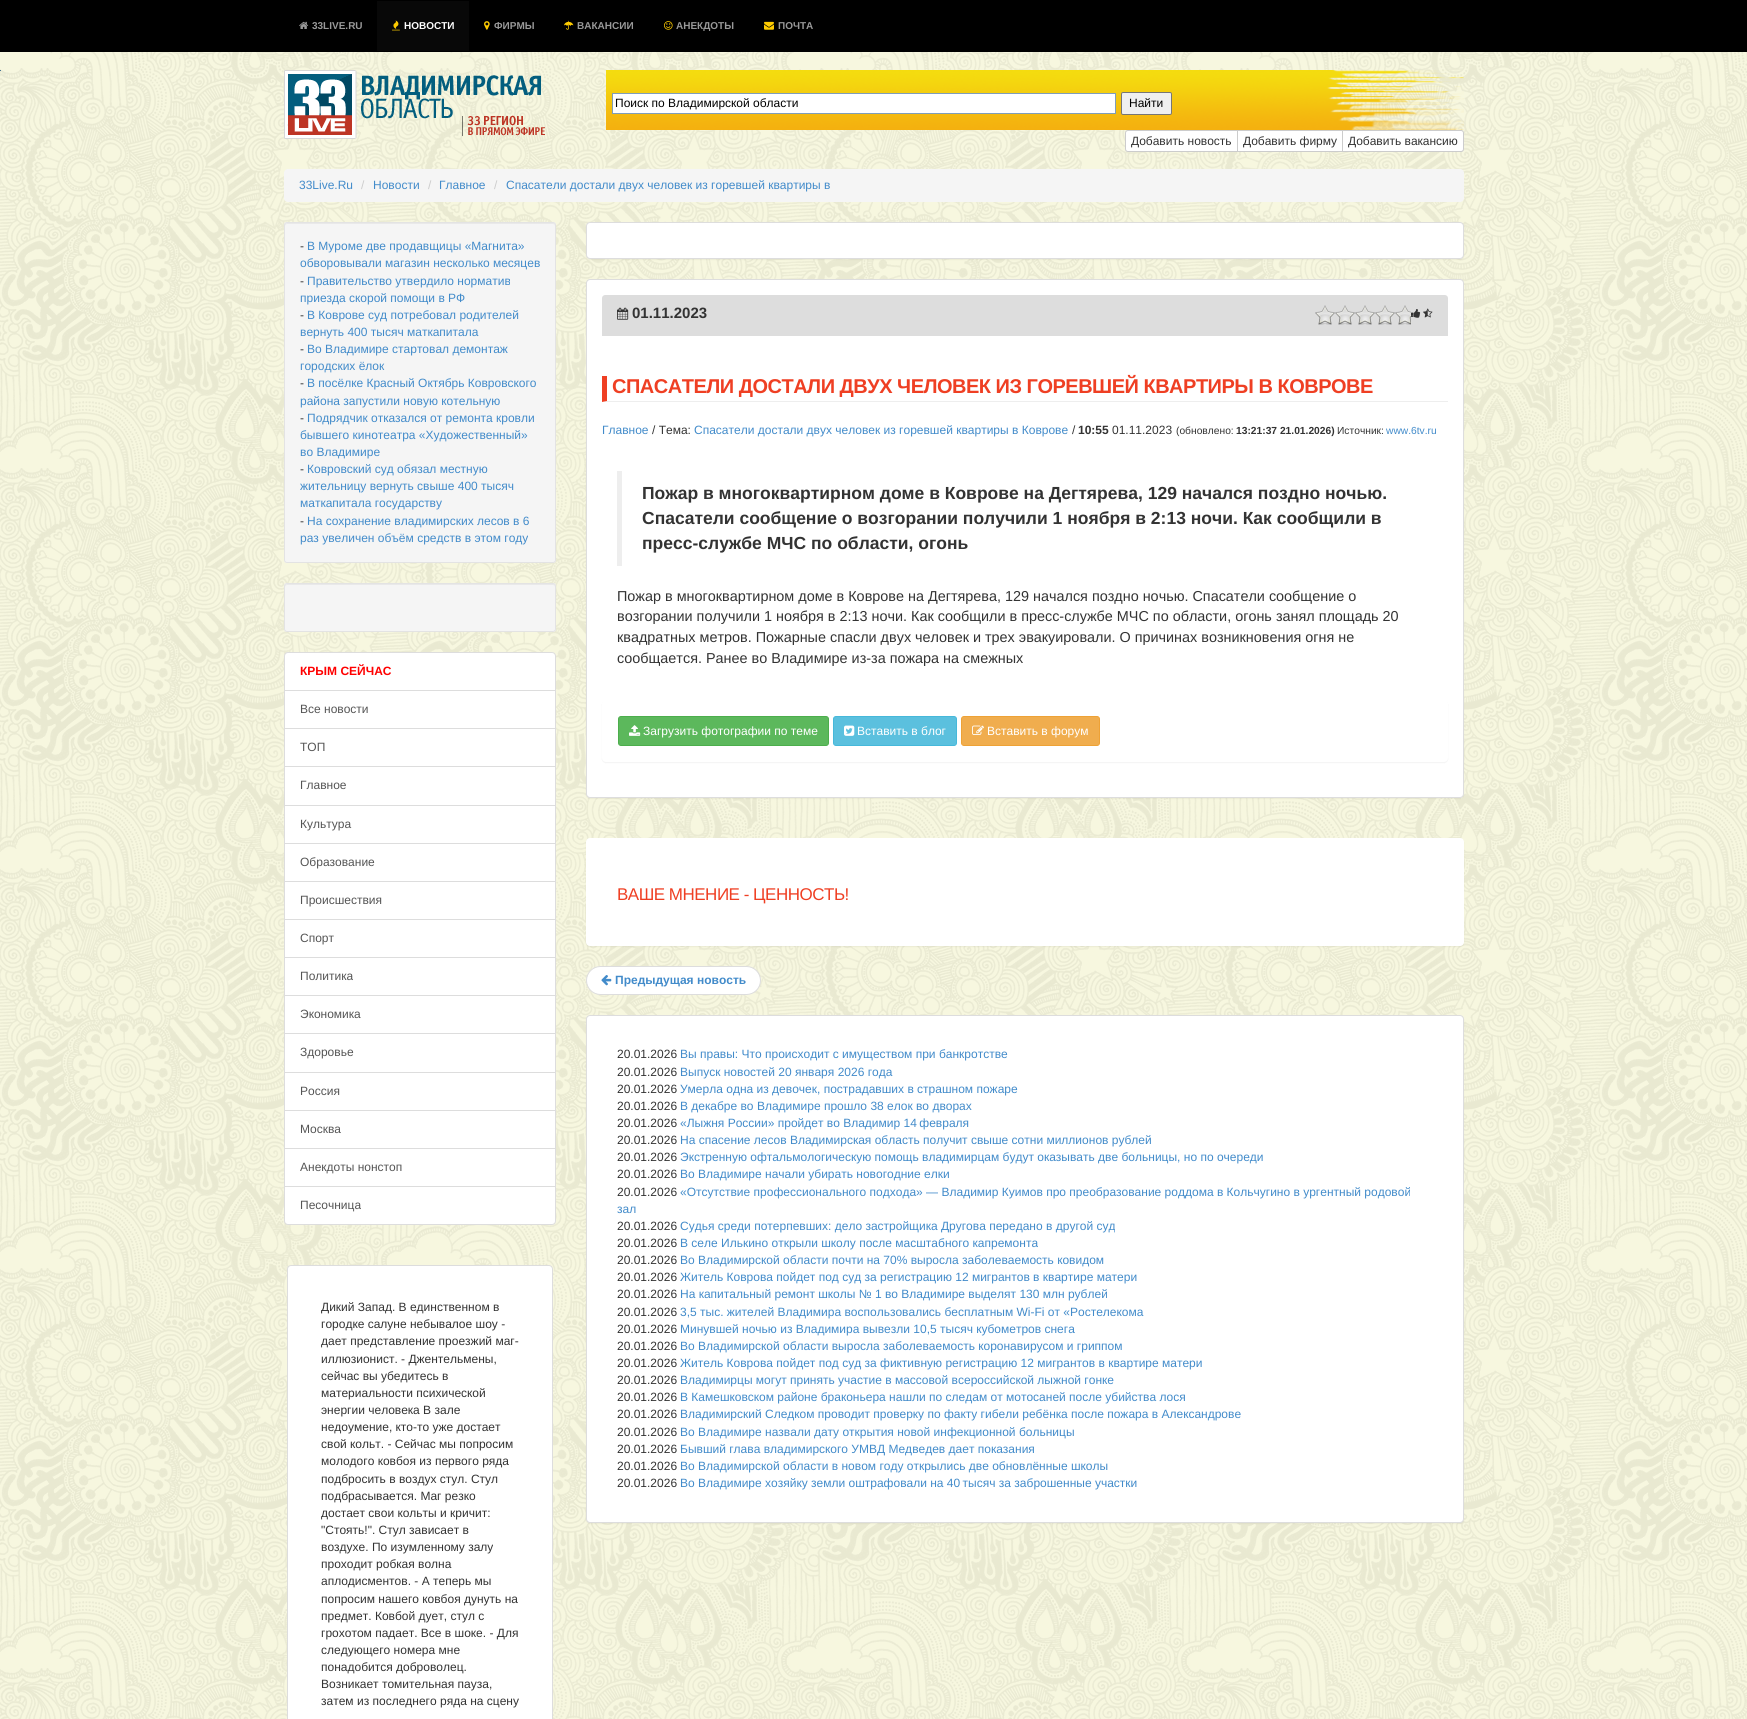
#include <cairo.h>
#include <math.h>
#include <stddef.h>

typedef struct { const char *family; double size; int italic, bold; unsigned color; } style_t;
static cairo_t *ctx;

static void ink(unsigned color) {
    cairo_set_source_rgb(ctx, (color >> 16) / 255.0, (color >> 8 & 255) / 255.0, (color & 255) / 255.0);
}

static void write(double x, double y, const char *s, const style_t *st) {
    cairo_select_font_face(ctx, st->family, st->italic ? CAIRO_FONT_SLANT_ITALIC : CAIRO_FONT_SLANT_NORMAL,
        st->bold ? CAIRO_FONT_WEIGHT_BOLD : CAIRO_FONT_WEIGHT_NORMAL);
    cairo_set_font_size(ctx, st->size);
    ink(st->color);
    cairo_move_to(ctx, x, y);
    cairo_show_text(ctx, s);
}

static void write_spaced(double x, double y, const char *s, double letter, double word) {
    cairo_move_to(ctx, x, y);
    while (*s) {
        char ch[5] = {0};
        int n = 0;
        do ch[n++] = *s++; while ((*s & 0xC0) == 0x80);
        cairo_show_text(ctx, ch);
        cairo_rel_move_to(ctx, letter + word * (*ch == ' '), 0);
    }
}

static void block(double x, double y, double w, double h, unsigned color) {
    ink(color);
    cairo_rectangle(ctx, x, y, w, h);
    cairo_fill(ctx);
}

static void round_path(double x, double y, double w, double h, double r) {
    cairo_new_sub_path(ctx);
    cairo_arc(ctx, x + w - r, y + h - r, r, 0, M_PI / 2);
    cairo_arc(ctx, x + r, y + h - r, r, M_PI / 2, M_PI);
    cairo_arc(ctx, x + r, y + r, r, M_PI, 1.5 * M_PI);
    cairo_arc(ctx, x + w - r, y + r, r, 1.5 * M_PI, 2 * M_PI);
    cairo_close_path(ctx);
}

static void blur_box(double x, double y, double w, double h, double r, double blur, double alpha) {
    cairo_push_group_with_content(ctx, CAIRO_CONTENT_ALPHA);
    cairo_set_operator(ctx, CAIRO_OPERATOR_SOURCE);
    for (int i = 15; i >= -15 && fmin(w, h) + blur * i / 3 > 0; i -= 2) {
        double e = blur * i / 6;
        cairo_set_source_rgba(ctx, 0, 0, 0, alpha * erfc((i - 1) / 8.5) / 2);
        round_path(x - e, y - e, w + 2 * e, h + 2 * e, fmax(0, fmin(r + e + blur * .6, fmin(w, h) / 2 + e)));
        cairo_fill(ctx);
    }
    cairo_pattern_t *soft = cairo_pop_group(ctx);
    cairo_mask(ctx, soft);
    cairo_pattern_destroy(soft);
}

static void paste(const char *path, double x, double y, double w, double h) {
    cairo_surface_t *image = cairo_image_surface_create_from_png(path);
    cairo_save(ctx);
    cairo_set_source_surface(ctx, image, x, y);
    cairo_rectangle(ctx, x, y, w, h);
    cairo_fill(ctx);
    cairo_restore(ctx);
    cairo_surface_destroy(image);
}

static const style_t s1 = {"Liberation Sans", 10, 0, 1, 0x999999};
static const style_t s2 = {"Liberation Sans", 10, 0, 1, 0xffffff};
static const style_t s3 = {"Liberation Sans", 12, 0, 0, 0x000000};
static const style_t s4 = {"Liberation Sans", 12, 0, 0, 0x333333};
static const style_t s5 = {"Liberation Sans", 12, 0, 0, 0x428bca};
static const style_t s6 = {"Liberation Sans", 12, 0, 0, 0xcccccc};
static const style_t s7 = {"Liberation Sans", 12, 0, 1, 0xff0000};
static const style_t s8 = {"Liberation Sans", 12, 0, 0, 0x555555};
static const style_t s9 = {"Liberation Sans", 15, 0, 1, 0x333333};
static const style_t s10 = {"Liberation Sans", 12, 0, 1, 0x333333};
static const style_t s11 = {"Liberation Sans", 10.25, 0, 0, 0x333333};
static const style_t s12 = {"Liberation Sans", 10.25, 0, 1, 0x333333};
static const style_t s13 = {"Liberation Sans", 10.25, 0, 0, 0x428bca};
static const style_t s14 = {"Liberation Sans", 17.5, 0, 1, 0x333333};
static const style_t s15 = {"Liberation Sans", 14.4, 0, 0, 0x333333};
static const style_t s16 = {"Liberation Sans", 12, 0, 0, 0xffffff};
static const style_t s17 = {"Liberation Sans", 12, 0, 1, 0x428bca};

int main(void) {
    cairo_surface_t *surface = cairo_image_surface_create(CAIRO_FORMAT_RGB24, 1747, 1719);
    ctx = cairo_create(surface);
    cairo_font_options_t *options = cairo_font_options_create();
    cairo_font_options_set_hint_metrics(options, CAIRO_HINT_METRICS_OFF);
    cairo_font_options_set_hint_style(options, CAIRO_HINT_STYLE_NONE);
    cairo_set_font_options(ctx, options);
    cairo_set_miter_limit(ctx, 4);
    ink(0xffffff);
    cairo_paint(ctx);
    paste("pic1.png", 0, 52, 1747, 1667);
    block(0, 0, 1747, 52, 0x000000);
    paste("pic2.png", 299, 21, 10, 8);
    write(312, 29, "33LIVE.RU", &s1);
    block(377, 1, 92, 50, 0x080808);
    paste("pic3.png", 392, 20, 8, 11);
    write(404, 29, "НОВОСТИ", &s2);
    paste("pic4.png", 484, 21, 6, 9);
    write(494, 29, "ФИРМЫ", &s1);
    paste("pic5.png", 564, 20, 10, 10);
    write(577, 29, "ВАКАНСИИ", &s1);
    paste("pic6.png", 664, 21, 9, 9);
    write(676, 29, "АНЕКДОТЫ", &s1);
    paste("pic7.png", 764, 21, 10, 9);
    write(778, 29, "ПОЧТА", &s1);
    block(0, 70, 1, 1, 0x47748f);
    paste("pic8.png", 284, 70, 261, 69);
    paste("pic9.png", 606, 70, 858, 60);
    ink(0xffffff);
    cairo_rectangle(ctx, 612.5, 93.5, 503, 20);
    cairo_fill_preserve(ctx);
    ink(0x7f9db9);
    cairo_set_line_width(ctx, 1);
    cairo_stroke(ctx);
    write(615, 107, "Поиск по Владимирской области", &s3);
    ink(0xefefef);
    round_path(1121.5, 92.5, 50, 22, 1.5);
    cairo_fill_preserve(ctx);
    ink(0x767676);
    cairo_stroke(ctx);
    write(1129, 107, "Найти", &s3);
    ink(0xffffff);
    cairo_new_path(ctx);
    cairo_move_to(ctx, 1128, 130.5);
    cairo_line_to(ctx, 1237.5, 130.5);
    cairo_line_to(ctx, 1237.5, 151.5);
    cairo_line_to(ctx, 1128, 151.5);
    cairo_curve_to(ctx, 1126.5, 151.5, 1125.5, 150.5, 1125.5, 149);
    cairo_line_to(ctx, 1125.5, 133);
    cairo_curve_to(ctx, 1125.5, 131.5, 1126.5, 130.5, 1128, 130.5);
    cairo_close_path(ctx);
    cairo_fill_preserve(ctx);
    ink(0xcccccc);
    cairo_stroke(ctx);
    write(1131, 145, "Добавить новость", &s4);
    ink(0xffffff);
    cairo_rectangle(ctx, 1237.5, 130.5, 105, 21);
    cairo_fill_preserve(ctx);
    ink(0xcccccc);
    cairo_stroke(ctx);
    write(1243, 145, "Добавить фирму", &s4);
    ink(0xffffff);
    cairo_new_path(ctx);
    cairo_move_to(ctx, 1342.5, 130.5);
    cairo_line_to(ctx, 1461, 130.5);
    cairo_curve_to(ctx, 1462.5, 130.5, 1463.5, 131.5, 1463.5, 133);
    cairo_line_to(ctx, 1463.5, 149);
    cairo_curve_to(ctx, 1463.5, 150.5, 1462.5, 151.5, 1461, 151.5);
    cairo_line_to(ctx, 1342.5, 151.5);
    cairo_close_path(ctx);
    cairo_fill_preserve(ctx);
    ink(0xcccccc);
    cairo_stroke(ctx);
    write(1348, 145, "Добавить вакансию", &s4);
    ink(0xf5f5f5);
    round_path(284, 169, 1180, 33, 4);
    cairo_fill(ctx);
    write(299, 189, "33Live.Ru", &s5);
    write(361, 189, "/", &s6);
    write(373, 189, "Новости", &s5);
    write(428, 189, "/", &s6);
    write(439, 189, "Главное", &s5);
    write(494, 189, "/", &s6);
    write(506, 189, "Спасатели достали двух человек из горевшей квартиры в", &s5);
    ink(0xf5f5f5);
    round_path(284, 222, 272, 341, 3);
    cairo_fill(ctx);
    ink(0xe9e9e9);
    cairo_new_path(ctx);
    cairo_move_to(ctx, 287, 224);
    cairo_line_to(ctx, 553, 224);
    cairo_curve_to(ctx, 554, 224, 555, 225, 555, 226);
    cairo_curve_to(ctx, 555, 225, 555, 223, 553, 223);
    cairo_line_to(ctx, 287, 223);
    cairo_line_to(ctx, 285, 224);
    cairo_line_to(ctx, 285, 226);
    cairo_curve_to(ctx, 285, 225, 286, 224, 287, 224);
    cairo_close_path(ctx);
    cairo_fill(ctx);
    round_path(284.5, 222.5, 271, 340, 2.5);
    ink(0xe3e3e3);
    cairo_stroke(ctx);
    write(300, 250, "-", &s4);
    write(307, 250, "В Муроме две продавщицы «Магнита»", &s5);
    write(300, 267, "обворовывали магазин несколько месяцев", &s5);
    write(300, 285, "-", &s4);
    write(307, 285, "Правительство утвердило норматив", &s5);
    write(300, 302, "приезда скорой помощи в РФ", &s5);
    write(300, 319, "-", &s4);
    write(307, 319, "В Коврове суд потребовал родителей", &s5);
    write(300, 336, "вернуть 400 тысяч маткапитала", &s5);
    write(300, 353, "-", &s4);
    write(307, 353, "Во Владимире стартовал демонтаж", &s5);
    write(300, 370, "городских ёлок", &s5);
    write(300, 387, "-", &s4);
    write(307, 387, "В посёлке Красный Октябрь Ковровского", &s5);
    write(300, 405, "района запустили новую котельную", &s5);
    write(300, 422, "-", &s4);
    write(307, 422, "Подрядчик отказался от ремонта кровли", &s5);
    write(300, 439, "бывшего кинотеатра «Художественный»", &s5);
    write(300, 456, "во Владимире", &s5);
    write(300, 473, "-", &s4);
    write(307, 473, "Ковровский суд обязал местную", &s5);
    write(300, 490, "жительницу вернуть свыше 400 тысяч", &s5);
    write(300, 507, "маткапитала государству", &s5);
    write(300, 525, "-", &s4);
    write(307, 525, "На сохранение владимирских лесов в 6", &s5);
    write(300, 542, "раз увеличен объём средств в этом году", &s5);
    ink(0xf5f5f5);
    round_path(284, 583, 272, 49, 3);
    cairo_fill(ctx);
    ink(0xe9e9e9);
    cairo_new_path(ctx);
    cairo_move_to(ctx, 287, 585);
    cairo_line_to(ctx, 553, 585);
    cairo_curve_to(ctx, 554, 585, 555, 586, 555, 587);
    cairo_curve_to(ctx, 555, 586, 555, 584, 553, 584);
    cairo_line_to(ctx, 287, 584);
    cairo_line_to(ctx, 285, 585);
    cairo_line_to(ctx, 285, 587);
    cairo_curve_to(ctx, 285, 586, 286, 585, 287, 585);
    cairo_close_path(ctx);
    cairo_fill(ctx);
    round_path(284.5, 583.5, 271, 48, 2.5);
    ink(0xe3e3e3);
    cairo_stroke(ctx);
    ink(0xffffff);
    cairo_new_path(ctx);
    cairo_move_to(ctx, 288, 652.5);
    cairo_line_to(ctx, 552, 652.5);
    cairo_curve_to(ctx, 554, 652.5, 555.5, 654, 555.5, 656);
    cairo_line_to(ctx, 555.5, 690.5);
    cairo_line_to(ctx, 284.5, 690.5);
    cairo_line_to(ctx, 284.5, 656);
    cairo_curve_to(ctx, 284.5, 654, 286, 652.5, 288, 652.5);
    cairo_close_path(ctx);
    cairo_fill_preserve(ctx);
    ink(0xdddddd);
    cairo_stroke(ctx);
    write(300, 675, "КРЫМ СЕЙЧАС", &s7);
    ink(0xffffff);
    cairo_rectangle(ctx, 284.5, 690.5, 271, 38);
    cairo_fill_preserve(ctx);
    ink(0xdddddd);
    cairo_stroke(ctx);
    write(300, 713, "Все новости", &s8);
    ink(0xffffff);
    cairo_rectangle(ctx, 284.5, 728.5, 271, 38);
    cairo_fill_preserve(ctx);
    ink(0xdddddd);
    cairo_stroke(ctx);
    write(300, 751, "ТОП", &s8);
    ink(0xffffff);
    cairo_rectangle(ctx, 284.5, 766.5, 271, 39);
    cairo_fill_preserve(ctx);
    ink(0xdddddd);
    cairo_stroke(ctx);
    write(300, 789, "Главное", &s8);
    ink(0xffffff);
    cairo_rectangle(ctx, 284.5, 805.5, 271, 38);
    cairo_fill_preserve(ctx);
    ink(0xdddddd);
    cairo_stroke(ctx);
    write(300, 828, "Культура", &s8);
    ink(0xffffff);
    cairo_rectangle(ctx, 284.5, 843.5, 271, 38);
    cairo_fill_preserve(ctx);
    ink(0xdddddd);
    cairo_stroke(ctx);
    write(300, 866, "Образование", &s8);
    ink(0xffffff);
    cairo_rectangle(ctx, 284.5, 881.5, 271, 38);
    cairo_fill_preserve(ctx);
    ink(0xdddddd);
    cairo_stroke(ctx);
    write(300, 904, "Происшествия", &s8);
    ink(0xffffff);
    cairo_rectangle(ctx, 284.5, 919.5, 271, 38);
    cairo_fill_preserve(ctx);
    ink(0xdddddd);
    cairo_stroke(ctx);
    write(300, 942, "Спорт", &s8);
    ink(0xffffff);
    cairo_rectangle(ctx, 284.5, 957.5, 271, 38);
    cairo_fill_preserve(ctx);
    ink(0xdddddd);
    cairo_stroke(ctx);
    write(300, 980, "Политика", &s8);
    ink(0xffffff);
    cairo_rectangle(ctx, 284.5, 995.5, 271, 38);
    cairo_fill_preserve(ctx);
    ink(0xdddddd);
    cairo_stroke(ctx);
    write(300, 1018, "Экономика", &s8);
    ink(0xffffff);
    cairo_rectangle(ctx, 284.5, 1033.5, 271, 39);
    cairo_fill_preserve(ctx);
    ink(0xdddddd);
    cairo_stroke(ctx);
    write(300, 1056, "Здоровье", &s8);
    ink(0xffffff);
    cairo_rectangle(ctx, 284.5, 1072.5, 271, 38);
    cairo_fill_preserve(ctx);
    ink(0xdddddd);
    cairo_stroke(ctx);
    write(300, 1095, "Россия", &s8);
    ink(0xffffff);
    cairo_rectangle(ctx, 284.5, 1110.5, 271, 38);
    cairo_fill_preserve(ctx);
    ink(0xdddddd);
    cairo_stroke(ctx);
    write(300, 1133, "Москва", &s8);
    ink(0xffffff);
    cairo_rectangle(ctx, 284.5, 1148.5, 271, 38);
    cairo_fill_preserve(ctx);
    ink(0xdddddd);
    cairo_stroke(ctx);
    write(300, 1171, "Анекдоты нонстоп", &s8);
    ink(0xffffff);
    cairo_new_path(ctx);
    cairo_move_to(ctx, 284.5, 1186.5);
    cairo_line_to(ctx, 555.5, 1186.5);
    cairo_line_to(ctx, 555.5, 1221);
    cairo_curve_to(ctx, 555.5, 1223, 554, 1224.5, 552, 1224.5);
    cairo_line_to(ctx, 288, 1224.5);
    cairo_curve_to(ctx, 286, 1224.5, 284.5, 1223, 284.5, 1221);
    cairo_close_path(ctx);
    cairo_fill_preserve(ctx);
    ink(0xdddddd);
    cairo_stroke(ctx);
    write(300, 1209, "Песочница", &s8);
    ink(0xffffff);
    round_path(287.5, 1265.5, 265, 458, 3.5);
    cairo_fill_preserve(ctx);
    ink(0xdddddd);
    cairo_stroke(ctx);
    write(321, 1311, "Дикий Запад. В единственном в", &s4);
    write(321, 1328, "городке салуне небывалое шоу -", &s4);
    write(321, 1345, "дает представление проезжий маг-", &s4);
    write(321, 1363, "иллюзионист. - Джентельмены,", &s4);
    write(321, 1380, "сейчас вы убедитесь в", &s4);
    write(321, 1397, "материальности психической", &s4);
    write(321, 1414, "энергии человека В зале", &s4);
    write(321, 1431, "недоумение, кто-то уже достает", &s4);
    write(321, 1448, "свой кольт. - Сейчас мы попросим", &s4);
    write(321, 1465, "молодого ковбоя из первого ряда", &s4);
    write(321, 1483, "подбросить в воздух стул. Стул", &s4);
    write(321, 1500, "подбрасывается. Маг резко", &s4);
    write(321, 1517, "достает свои кольты и кричит:", &s4);
    write(321, 1534, "\"Стоять!\". Стул зависает в", &s4);
    write(321, 1551, "воздухе. По изумленному залу", &s4);
    write(321, 1568, "проходит робкая волна", &s4);
    write(321, 1585, "аплодисментов. - А теперь мы", &s4);
    write(321, 1603, "попросим нашего ковбоя дунуть на", &s4);
    write(321, 1620, "предмет. Ковбой дует, стул с", &s4);
    write(321, 1637, "грохотом падает. Все в шоке. - Для", &s4);
    write(321, 1654, "следующего номера мне", &s4);
    write(321, 1671, "понадобится доброволец.", &s4);
    write(321, 1688, "Возникает томительная пауза,", &s4);
    write(321, 1705, "затем из последнего ряда на сцену", &s4);
    ink(0x000000);
    blur_box(586, 223, 878, 37, 4, 0.5, 0.05);
    ink(0xffffff);
    round_path(586.5, 222.5, 877, 36, 3.5);
    cairo_fill_preserve(ctx);
    ink(0xdddddd);
    cairo_stroke(ctx);
    ink(0x000000);
    blur_box(586, 280, 878, 519, 4, 0.5, 0.05);
    ink(0xffffff);
    round_path(586.5, 279.5, 877, 518, 3.5);
    cairo_fill_preserve(ctx);
    ink(0xdddddd);
    cairo_stroke(ctx);
    cairo_new_path(ctx);
    cairo_move_to(ctx, 605, 295);
    cairo_line_to(ctx, 1445, 295);
    cairo_curve_to(ctx, 1446.5, 295, 1448, 296.5, 1448, 298);
    cairo_line_to(ctx, 1448, 336);
    cairo_line_to(ctx, 602, 336);
    cairo_line_to(ctx, 602, 298);
    cairo_curve_to(ctx, 602, 296.5, 603.5, 295, 605, 295);
    cairo_close_path(ctx);
    cairo_fill(ctx);
    paste("pic10.png", 617, 307, 12, 13);
    write(632, 318, "01.11.2023", &s9);
    paste("pic11.png", 1315, 305, 96, 20);
    paste("pic12.png", 1411, 309, 10, 9);
    paste("pic13.png", 1423, 308, 10, 10);
    ink(0xeeeeee);
    cairo_new_path(ctx);
    cairo_move_to(ctx, 1448, 402);
    cairo_line_to(ctx, 602, 402);
    cairo_line_to(ctx, 607, 401);
    cairo_line_to(ctx, 1448, 401);
    cairo_close_path(ctx);
    cairo_fill(ctx);
    ink(0xef3f23);
    cairo_new_path(ctx);
    cairo_move_to(ctx, 602, 402);
    cairo_line_to(ctx, 602, 376);
    cairo_line_to(ctx, 607, 376);
    cairo_line_to(ctx, 607, 401);
    cairo_close_path(ctx);
    cairo_fill(ctx);
    cairo_set_font_size(ctx, 20);
    write_spaced(612, 393, "СПАСАТЕЛИ ДОСТАЛИ ДВУХ ЧЕЛОВЕК ИЗ ГОРЕВШЕЙ КВАРТИРЫ В КОВРОВЕ", -0.5, 0);
    write(602, 434, "Главное", &s5);
    write(652, 434, "/ Тема:", &s4);
    write(694, 434, "Спасатели достали двух человек из горевшей квартиры в Коврове", &s5);
    write(1072, 434, "/", &s4);
    write(1078, 434, "10:55", &s10);
    write(1112, 434, "01.11.2023", &s4);
    write(1176, 434, "(обновлено:", &s11);
    write(1236, 434, "13:21:37 21.01.2026)", &s12);
    write(1337, 434, "Источник:", &s11);
    write(1386, 434, "www.6tv.ru", &s13);
    block(617, 471, 5, 95, 0xeeeeee);
    write(642, 499, "Пожар в многоквартирном доме в Коврове на Дегтярева, 129 начался поздно ночью.", &s14);
    write(642, 524, "Спасатели сообщение о возгорании получили 1 ноября в 2:13 ночи. Как сообщили в", &s14);
    write(642, 549, "пресс-службе МЧС по области, огонь", &s14);
    write(617, 601, "Пожар в многоквартирном доме в Коврове на Дегтярева, 129 начался поздно ночью. Спасатели сообщение о", &s15);
    write(617, 621, "возгорании получили 1 ноября в 2:13 ночи. Как сообщили в пресс-службе МЧС по области, огонь занял площадь 20", &s15);
    write(617, 642, "квадратных метров. Пожарные спасли двух человек и трех эвакуировали. О причинах возникновения огня не", &s15);
    write(617, 663, "сообщается. Ранее во Владимире из-за пожара на смежных", &s15);
    ink(0x000000);
    blur_box(602, 701, 846, 62, 4, 0.5, 0.05);
    ink(0xffffff);
    round_path(602, 700, 846, 62, 4);
    cairo_fill(ctx);
    ink(0x5cb85c);
    round_path(618.5, 716.5, 210, 29, 2.5);
    cairo_fill_preserve(ctx);
    ink(0x4cae4c);
    cairo_stroke(ctx);
    paste("pic14.png", 629, 725, 12, 11);
    write(643, 735, "Загрузить фотографии по теме", &s16);
    ink(0x5bc0de);
    round_path(833.5, 716.5, 123, 29, 2.5);
    cairo_fill_preserve(ctx);
    ink(0x46b8da);
    cairo_stroke(ctx);
    paste("pic15.png", 844, 725, 11, 11);
    write(857, 735, "Вставить в блог", &s16);
    ink(0xf0ad4e);
    round_path(961.5, 716.5, 138, 29, 2.5);
    cairo_fill_preserve(ctx);
    ink(0xeea236);
    cairo_stroke(ctx);
    paste("pic16.png", 972, 725, 12, 10);
    write(987, 735, "Вставить в форум", &s16);
    ink(0x000000);
    blur_box(586, 839, 878, 108, 4, 0.5, 0.05);
    ink(0xffffff);
    round_path(586, 838, 878, 108, 4);
    cairo_fill(ctx);
    cairo_set_font_size(ctx, 17);
    ink(0xef3f23);
    write_spaced(617, 900, "ВАШЕ МНЕНИЕ - ЦЕННОСТЬ!", -0.5, 0);
    ink(0xffffff);
    round_path(586.5, 966.5, 174, 28, 14);
    cairo_fill_preserve(ctx);
    ink(0xdddddd);
    cairo_stroke(ctx);
    paste("pic17.png", 601, 975, 11, 11);
    write(615, 984, "Предыдущая новость", &s17);
    ink(0x000000);
    blur_box(586, 1016, 878, 508, 4, 0.5, 0.05);
    ink(0xffffff);
    round_path(586.5, 1015.5, 877, 507, 3.5);
    cairo_fill_preserve(ctx);
    ink(0xdddddd);
    cairo_stroke(ctx);
    write(617, 1058, "20.01.2026", &s4);
    write(680, 1058, "Вы правы: Что происходит с имуществом при банкротстве", &s5);
    write(617, 1076, "20.01.2026", &s4);
    write(680, 1076, "Выпуск новостей 20 января 2026 года", &s5);
    write(617, 1093, "20.01.2026", &s4);
    write(680, 1093, "Умерла одна из девочек, пострадавших в страшном пожаре", &s5);
    write(617, 1110, "20.01.2026", &s4);
    write(680, 1110, "В декабре во Владимире прошло 38 елок во дворах", &s5);
    write(617, 1127, "20.01.2026", &s4);
    write(680, 1127, "«Лыжня России» пройдет во Владимир 14 февраля", &s5);
    write(617, 1144, "20.01.2026", &s4);
    write(680, 1144, "На спасение лесов Владимирская область получит свыше сотни миллионов рублей", &s5);
    write(617, 1161, "20.01.2026", &s4);
    write(680, 1161, "Экстренную офтальмологическую помощь владимирцам будут оказывать две больницы, но по очереди", &s5);
    write(617, 1178, "20.01.2026", &s4);
    write(680, 1178, "Во Владимире начали убирать новогодние елки", &s5);
    write(617, 1196, "20.01.2026", &s4);
    write(680, 1196, "«Отсутствие профессионального подхода» — Владимир Куимов про преобразование роддома в Кольчугино в ургентный родовой", &s5);
    write(617, 1213, "зал", &s5);
    write(617, 1230, "20.01.2026", &s4);
    write(680, 1230, "Судья среди потерпевших: дело застройщика Другова передано в другой суд", &s5);
    write(617, 1247, "20.01.2026", &s4);
    write(680, 1247, "В селе Илькино открыли школу после масштабного капремонта", &s5);
    write(617, 1264, "20.01.2026", &s4);
    write(680, 1264, "Во Владимирской области почти на 70% выросла заболеваемость ковидом", &s5);
    write(617, 1281, "20.01.2026", &s4);
    write(680, 1281, "Житель Коврова пойдет под суд за регистрацию 12 мигрантов в квартире матери", &s5);
    write(617, 1298, "20.01.2026", &s4);
    write(680, 1298, "На капитальный ремонт школы № 1 во Владимире выделят 130 млн рублей", &s5);
    write(617, 1316, "20.01.2026", &s4);
    write(680, 1316, "3,5 тыс. жителей Владимира воспользовались бесплатным Wi-Fi от «Ростелекома", &s5);
    write(617, 1333, "20.01.2026", &s4);
    write(680, 1333, "Минувшей ночью из Владимира вывезли 10,5 тысяч кубометров снега", &s5);
    write(617, 1350, "20.01.2026", &s4);
    write(680, 1350, "Во Владимирской области выросла заболеваемость коронавирусом и гриппом", &s5);
    write(617, 1367, "20.01.2026", &s4);
    write(680, 1367, "Житель Коврова пойдет под суд за фиктивную регистрацию 12 мигрантов в квартире матери", &s5);
    write(617, 1384, "20.01.2026", &s4);
    write(680, 1384, "Владимирцы могут принять участие в массовой всероссийской лыжной гонке", &s5);
    write(617, 1401, "20.01.2026", &s4);
    write(680, 1401, "В Камешковском районе браконьера нашли по следам от мотосаней после убийства лося", &s5);
    write(617, 1418, "20.01.2026", &s4);
    write(680, 1418, "Владимирский Следком проводит проверку по факту гибели ребёнка после пожара в Александрове", &s5);
    write(617, 1436, "20.01.2026", &s4);
    write(680, 1436, "Во Владимире назвали дату открытия новой инфекционной больницы", &s5);
    write(617, 1453, "20.01.2026", &s4);
    write(680, 1453, "Бывший глава владимирского УМВД Медведев дает показания", &s5);
    write(617, 1470, "20.01.2026", &s4);
    write(680, 1470, "Во Владимирской области в новом году открылись две обновлённые школы", &s5);
    write(617, 1487, "20.01.2026", &s4);
    write(680, 1487, "Во Владимире хозяйку земли оштрафовали на 40 тысяч за заброшенные участки", &s5);
    cairo_surface_write_to_png(surface, "screenshot.png");
    cairo_font_options_destroy(options);
    cairo_destroy(ctx);
    cairo_surface_destroy(surface);
    return 0;
}
